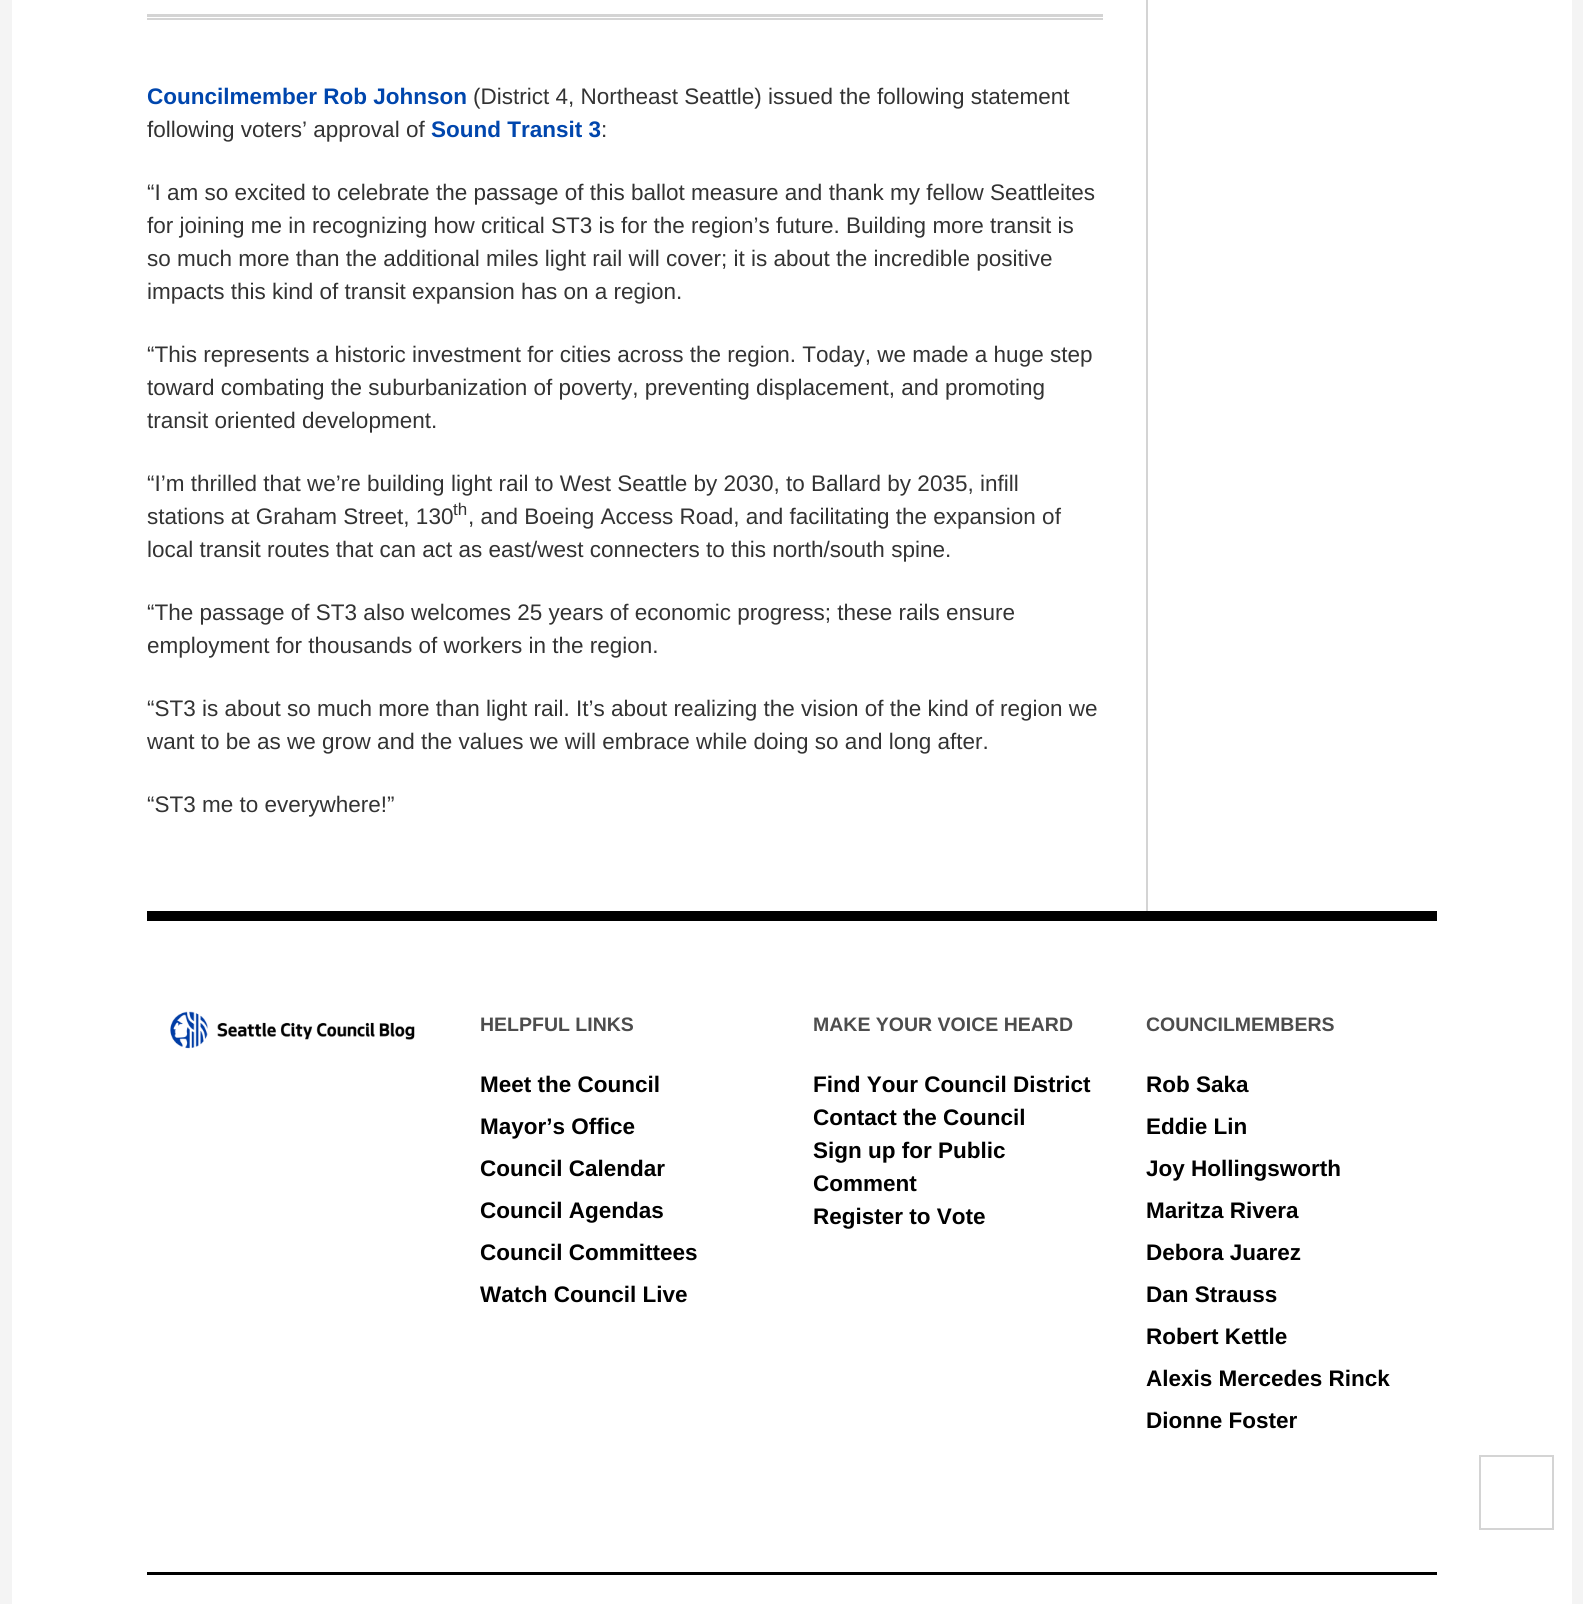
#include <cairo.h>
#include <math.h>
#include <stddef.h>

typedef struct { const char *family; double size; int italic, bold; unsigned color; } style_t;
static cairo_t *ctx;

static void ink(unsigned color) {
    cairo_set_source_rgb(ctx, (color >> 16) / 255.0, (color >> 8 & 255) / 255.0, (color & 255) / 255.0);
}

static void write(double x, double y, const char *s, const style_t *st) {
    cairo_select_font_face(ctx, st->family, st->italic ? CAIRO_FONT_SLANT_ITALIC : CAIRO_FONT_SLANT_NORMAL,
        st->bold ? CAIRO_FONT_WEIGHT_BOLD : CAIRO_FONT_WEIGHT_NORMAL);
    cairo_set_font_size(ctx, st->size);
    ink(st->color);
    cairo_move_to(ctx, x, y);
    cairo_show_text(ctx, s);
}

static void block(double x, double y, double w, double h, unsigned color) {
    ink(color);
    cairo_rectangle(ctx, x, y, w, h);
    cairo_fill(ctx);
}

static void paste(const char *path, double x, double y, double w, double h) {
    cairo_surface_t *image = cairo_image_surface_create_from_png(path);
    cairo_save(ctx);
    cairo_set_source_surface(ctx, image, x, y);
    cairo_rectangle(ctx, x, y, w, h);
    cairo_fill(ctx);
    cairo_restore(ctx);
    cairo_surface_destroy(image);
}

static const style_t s1 = {"Liberation Sans", 22.5, 0, 1, 0x0046ad};
static const style_t s2 = {"Liberation Sans", 22.5, 0, 0, 0x333333};
static const style_t s3 = {"Liberation Sans", 17, 0, 0, 0x333333};
static const style_t s4 = {"Liberation Sans", 19.5, 0, 1, 0x4d4d4d};
static const style_t s5 = {"Liberation Sans", 22.5, 0, 1, 0x000000};

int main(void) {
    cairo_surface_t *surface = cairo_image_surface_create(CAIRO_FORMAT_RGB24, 1583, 1604);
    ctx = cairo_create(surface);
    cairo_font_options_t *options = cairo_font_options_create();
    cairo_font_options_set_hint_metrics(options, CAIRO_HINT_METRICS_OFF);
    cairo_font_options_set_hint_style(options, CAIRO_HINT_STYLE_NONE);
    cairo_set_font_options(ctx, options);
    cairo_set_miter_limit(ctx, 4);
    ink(0xf4f4f4);
    cairo_paint(ctx);
    block(12, 0, 1560, 1604, 0xffffff);
    block(147, 14, 956, 3, 0xd4d4d4);
    block(147, 18, 956, 2, 0xd4d4d4);
    write(147, 104, "Councilmember Rob Johnson", &s1);
    write(473, 104, "(District 4, Northeast Seattle) issued the following statement", &s2);
    write(147, 137, "following voters’ approval of", &s2);
    write(431, 137, "Sound Transit 3", &s1);
    write(601, 137, ":", &s2);
    write(147, 200, "“I am so excited to celebrate the passage of this ballot measure and thank my fellow Seattleites", &s2);
    write(147, 233, "for joining me in recognizing how critical ST3 is for the region’s future. Building more transit is", &s2);
    write(147, 266, "so much more than the additional miles light rail will cover; it is about the incredible positive", &s2);
    write(147, 299, "impacts this kind of transit expansion has on a region.", &s2);
    write(147, 362, "“This represents a historic investment for cities across the region. Today, we made a huge step", &s2);
    write(147, 395, "toward combating the suburbanization of poverty, preventing displacement, and promoting", &s2);
    write(147, 428, "transit oriented development.", &s2);
    write(147, 491, "“I’m thrilled that we’re building light rail to West Seattle by 2030, to Ballard by 2035, infill", &s2);
    write(147, 524, "stations at Graham Street, 130", &s2);
    write(453, 515, "th", &s3);
    write(468, 524, ", and Boeing Access Road, and facilitating the expansion of", &s2);
    write(147, 557, "local transit routes that can act as east/west connecters to this north/south spine.", &s2);
    write(147, 620, "“The passage of ST3 also welcomes 25 years of economic progress; these rails ensure", &s2);
    write(147, 653, "employment for thousands of workers in the region.", &s2);
    write(147, 716, "“ST3 is about so much more than light rail. It’s about realizing the vision of the kind of region we", &s2);
    write(147, 749, "want to be as we grow and the values we will embrace while doing so and long after.", &s2);
    write(147, 812, "“ST3 me to everywhere!”", &s2);
    block(1146, 0, 2, 911, 0xd4d4d4);
    block(147, 911, 1290, 10, 0x000000);
    paste("pic1.png", 170, 1011, 245, 38);
    write(480, 1031, "HELPFUL LINKS", &s4);
    write(480, 1092, "Meet the Council", &s5);
    write(480, 1134, "Mayor’s Office", &s5);
    write(480, 1176, "Council Calendar", &s5);
    write(480, 1218, "Council Agendas", &s5);
    write(480, 1260, "Council Committees", &s5);
    write(480, 1302, "Watch Council Live", &s5);
    write(813, 1031, "MAKE YOUR VOICE HEARD", &s4);
    write(813, 1092, "Find Your Council District", &s5);
    write(813, 1125, "Contact the Council", &s5);
    write(813, 1158, "Sign up for Public", &s5);
    write(813, 1191, "Comment", &s5);
    write(813, 1224, "Register to Vote", &s5);
    write(1146, 1031, "COUNCILMEMBERS", &s4);
    write(1146, 1092, "Rob Saka", &s5);
    write(1146, 1134, "Eddie Lin", &s5);
    write(1146, 1176, "Joy Hollingsworth", &s5);
    write(1146, 1218, "Maritza Rivera", &s5);
    write(1146, 1260, "Debora Juarez", &s5);
    write(1146, 1302, "Dan Strauss", &s5);
    write(1146, 1344, "Robert Kettle", &s5);
    write(1146, 1386, "Alexis Mercedes Rinck", &s5);
    write(1146, 1428, "Dionne Foster", &s5);
    cairo_rectangle(ctx, 1480, 1456, 73, 73);
    ink(0xd4d4d4);
    cairo_stroke(ctx);
    block(147, 1572, 1290, 3, 0x000000);
    cairo_surface_write_to_png(surface, "screenshot.png");
    cairo_font_options_destroy(options);
    cairo_destroy(ctx);
    cairo_surface_destroy(surface);
    return 0;
}
